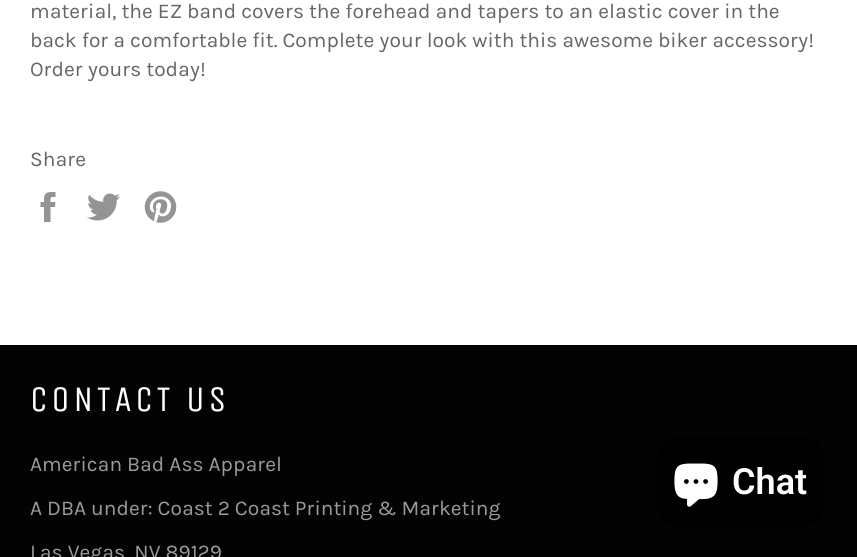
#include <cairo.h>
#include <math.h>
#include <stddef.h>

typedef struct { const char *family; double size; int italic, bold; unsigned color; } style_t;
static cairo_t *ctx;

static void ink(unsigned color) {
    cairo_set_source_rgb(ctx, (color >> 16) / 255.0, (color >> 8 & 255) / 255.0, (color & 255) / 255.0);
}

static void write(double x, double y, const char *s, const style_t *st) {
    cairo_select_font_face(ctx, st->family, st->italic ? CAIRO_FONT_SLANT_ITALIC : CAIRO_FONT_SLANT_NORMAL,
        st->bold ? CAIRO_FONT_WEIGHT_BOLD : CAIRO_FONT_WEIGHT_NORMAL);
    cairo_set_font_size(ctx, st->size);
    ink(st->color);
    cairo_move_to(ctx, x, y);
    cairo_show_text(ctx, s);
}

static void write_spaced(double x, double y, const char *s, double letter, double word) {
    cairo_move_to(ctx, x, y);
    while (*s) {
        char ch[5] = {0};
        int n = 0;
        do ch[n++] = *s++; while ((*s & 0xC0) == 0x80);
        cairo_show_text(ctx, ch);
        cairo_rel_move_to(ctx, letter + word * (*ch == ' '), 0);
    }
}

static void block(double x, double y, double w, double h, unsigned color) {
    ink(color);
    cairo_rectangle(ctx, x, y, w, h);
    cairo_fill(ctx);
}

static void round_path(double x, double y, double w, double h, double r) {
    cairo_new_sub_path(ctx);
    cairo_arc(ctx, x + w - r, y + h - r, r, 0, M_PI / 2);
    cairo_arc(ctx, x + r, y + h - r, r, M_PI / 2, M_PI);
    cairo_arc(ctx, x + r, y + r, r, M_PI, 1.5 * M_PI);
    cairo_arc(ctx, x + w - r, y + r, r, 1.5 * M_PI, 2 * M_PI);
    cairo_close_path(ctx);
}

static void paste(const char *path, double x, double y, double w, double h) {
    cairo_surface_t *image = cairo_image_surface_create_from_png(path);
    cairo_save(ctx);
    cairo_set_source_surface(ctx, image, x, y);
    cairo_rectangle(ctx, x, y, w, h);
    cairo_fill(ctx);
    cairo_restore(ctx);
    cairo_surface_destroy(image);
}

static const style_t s1 = {"Karla", 21, 0, 0, 0x666666};
static const style_t s2 = {"Karla", 21, 0, 0, 0x9a9a9a};
static const style_t s3 = {"Roboto SemiBold", 36, 0, 0, 0xffffff};

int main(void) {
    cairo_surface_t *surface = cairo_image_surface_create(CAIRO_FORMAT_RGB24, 857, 557);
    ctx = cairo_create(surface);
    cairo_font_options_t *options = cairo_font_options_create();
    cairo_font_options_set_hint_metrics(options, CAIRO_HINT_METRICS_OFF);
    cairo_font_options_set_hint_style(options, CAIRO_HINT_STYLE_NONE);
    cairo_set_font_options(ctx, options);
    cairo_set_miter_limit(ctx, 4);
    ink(0xffffff);
    cairo_paint(ctx);
    write(30, 18, "material, the EZ band covers the forehead and tapers to an elastic cover in the", &s1);
    write(30, 47, "back for a comfortable fit. Complete your look with this awesome biker accessory!", &s1);
    write(30, 76, "Order yours today!", &s1);
    write(30, 166, "Share", &s1);
    paste("pic1.png", 40, 192, 16, 30);
    paste("pic2.png", 87, 193, 33, 28);
    paste("pic3.png", 144, 191, 33, 32);
    block(0, 345, 857, 212, 0x030303);
    cairo_select_font_face(ctx, "Unica One", CAIRO_FONT_SLANT_NORMAL, CAIRO_FONT_WEIGHT_NORMAL);
    cairo_set_font_size(ctx, 36);
    ink(0xffffff);
    write_spaced(30, 411, "CONTACT US", 3.6, 0);
    write(30, 471, "American Bad Ass Apparel", &s2);
    write(30, 515, "A DBA under: Coast 2 Coast Printing & Marketing", &s2);
    write(30, 559, "Las Vegas, NV 89129", &s2);
    ink(0x000000);
    round_path(656, 437, 169, 90, 24);
    cairo_fill(ctx);
    paste("pic4.png", 674, 463, 44, 44);
    write(732, 494, "Chat", &s3);
    cairo_surface_write_to_png(surface, "screenshot.png");
    cairo_font_options_destroy(options);
    cairo_destroy(ctx);
    cairo_surface_destroy(surface);
    return 0;
}
